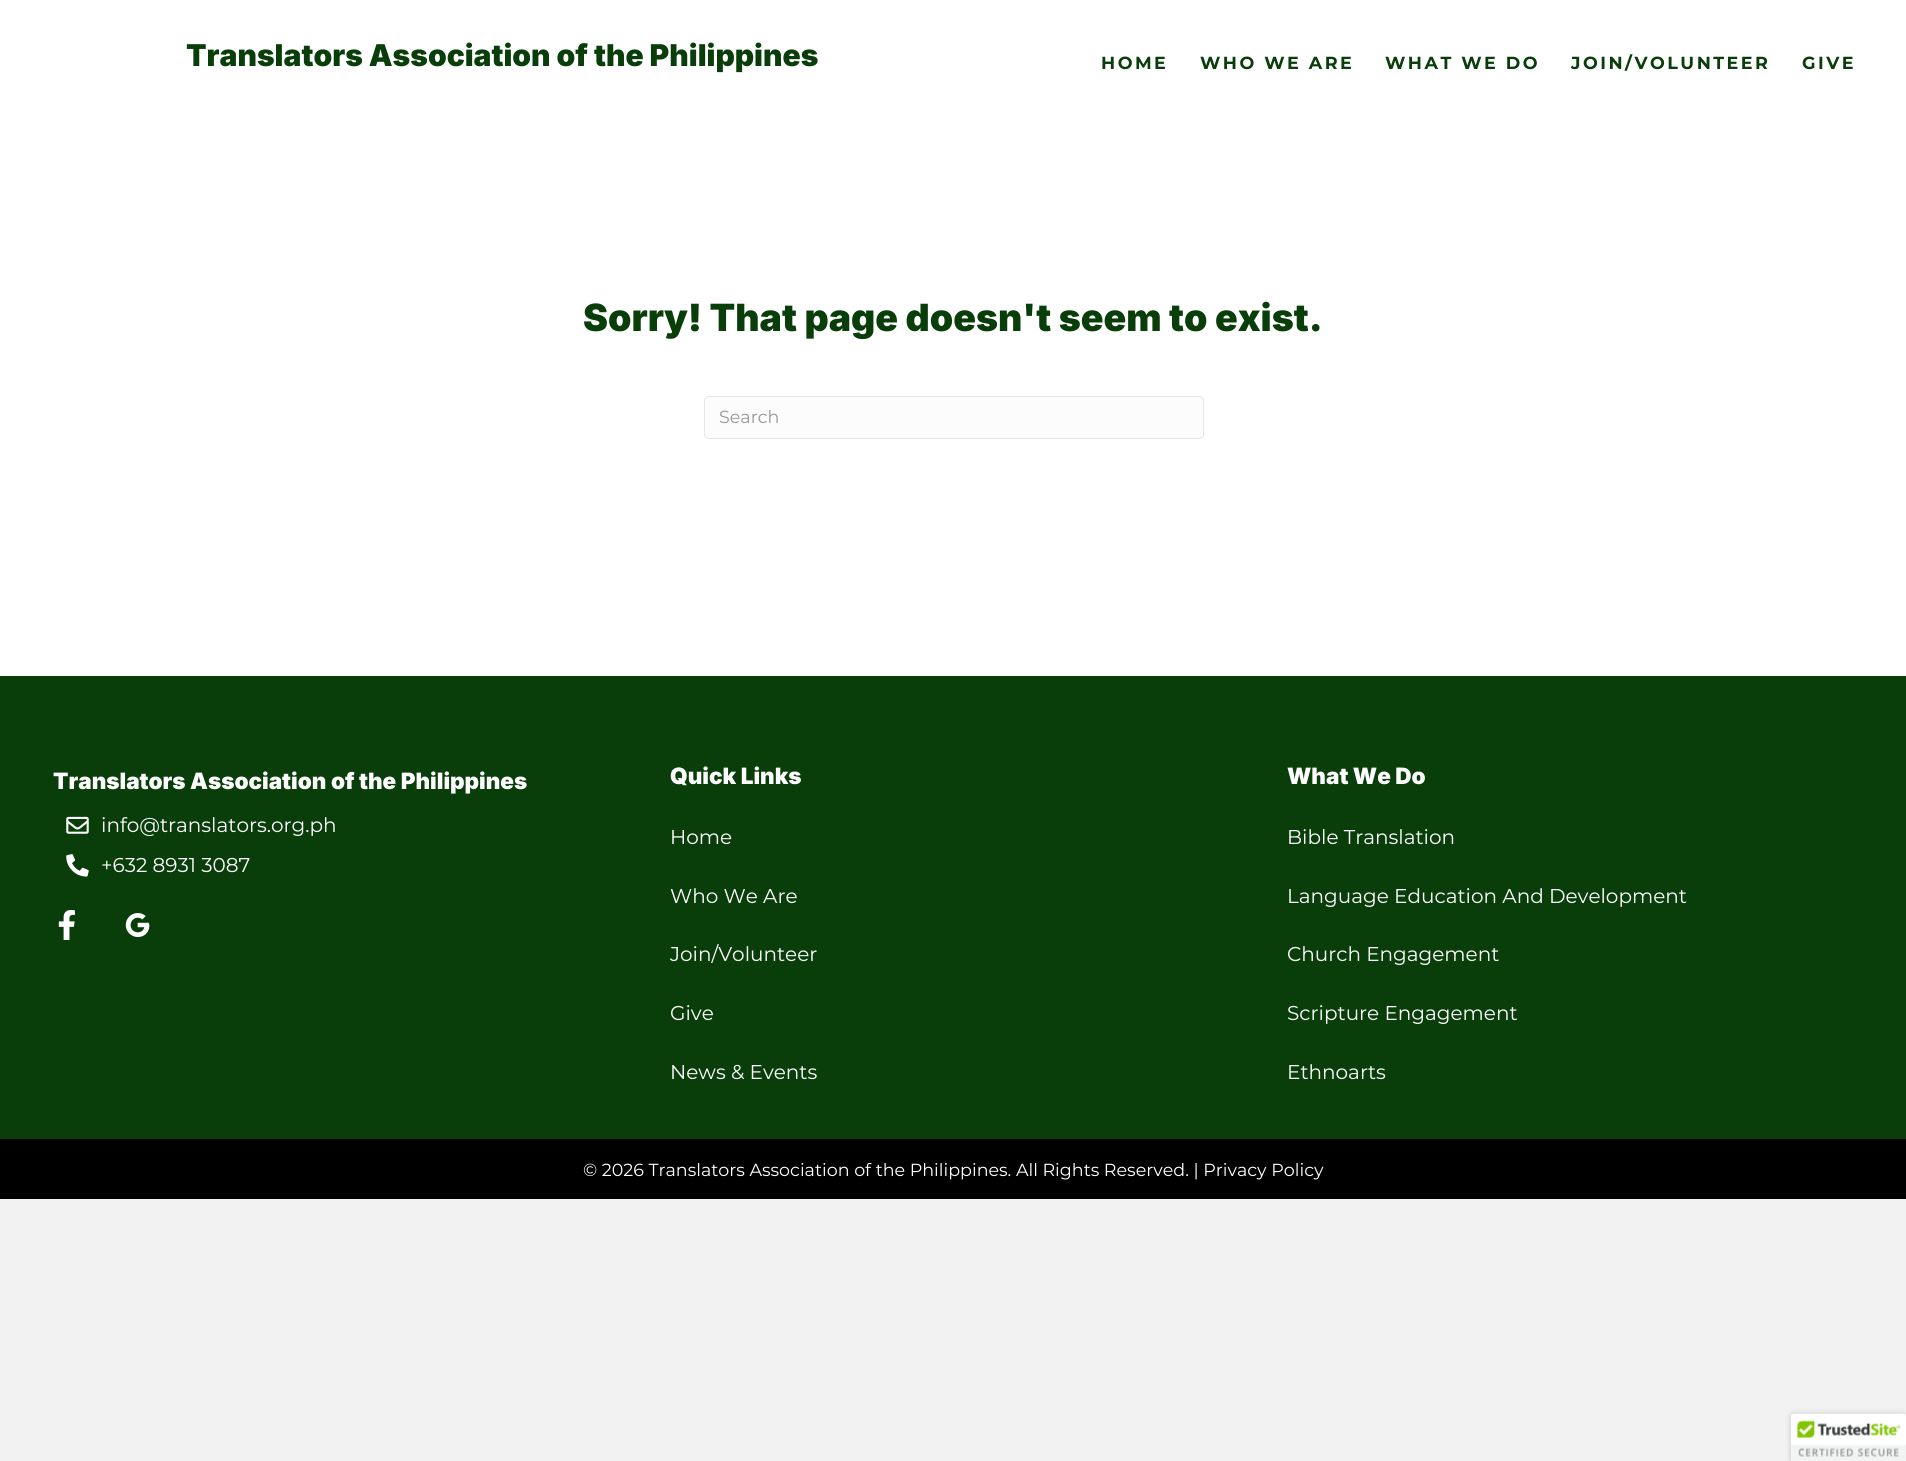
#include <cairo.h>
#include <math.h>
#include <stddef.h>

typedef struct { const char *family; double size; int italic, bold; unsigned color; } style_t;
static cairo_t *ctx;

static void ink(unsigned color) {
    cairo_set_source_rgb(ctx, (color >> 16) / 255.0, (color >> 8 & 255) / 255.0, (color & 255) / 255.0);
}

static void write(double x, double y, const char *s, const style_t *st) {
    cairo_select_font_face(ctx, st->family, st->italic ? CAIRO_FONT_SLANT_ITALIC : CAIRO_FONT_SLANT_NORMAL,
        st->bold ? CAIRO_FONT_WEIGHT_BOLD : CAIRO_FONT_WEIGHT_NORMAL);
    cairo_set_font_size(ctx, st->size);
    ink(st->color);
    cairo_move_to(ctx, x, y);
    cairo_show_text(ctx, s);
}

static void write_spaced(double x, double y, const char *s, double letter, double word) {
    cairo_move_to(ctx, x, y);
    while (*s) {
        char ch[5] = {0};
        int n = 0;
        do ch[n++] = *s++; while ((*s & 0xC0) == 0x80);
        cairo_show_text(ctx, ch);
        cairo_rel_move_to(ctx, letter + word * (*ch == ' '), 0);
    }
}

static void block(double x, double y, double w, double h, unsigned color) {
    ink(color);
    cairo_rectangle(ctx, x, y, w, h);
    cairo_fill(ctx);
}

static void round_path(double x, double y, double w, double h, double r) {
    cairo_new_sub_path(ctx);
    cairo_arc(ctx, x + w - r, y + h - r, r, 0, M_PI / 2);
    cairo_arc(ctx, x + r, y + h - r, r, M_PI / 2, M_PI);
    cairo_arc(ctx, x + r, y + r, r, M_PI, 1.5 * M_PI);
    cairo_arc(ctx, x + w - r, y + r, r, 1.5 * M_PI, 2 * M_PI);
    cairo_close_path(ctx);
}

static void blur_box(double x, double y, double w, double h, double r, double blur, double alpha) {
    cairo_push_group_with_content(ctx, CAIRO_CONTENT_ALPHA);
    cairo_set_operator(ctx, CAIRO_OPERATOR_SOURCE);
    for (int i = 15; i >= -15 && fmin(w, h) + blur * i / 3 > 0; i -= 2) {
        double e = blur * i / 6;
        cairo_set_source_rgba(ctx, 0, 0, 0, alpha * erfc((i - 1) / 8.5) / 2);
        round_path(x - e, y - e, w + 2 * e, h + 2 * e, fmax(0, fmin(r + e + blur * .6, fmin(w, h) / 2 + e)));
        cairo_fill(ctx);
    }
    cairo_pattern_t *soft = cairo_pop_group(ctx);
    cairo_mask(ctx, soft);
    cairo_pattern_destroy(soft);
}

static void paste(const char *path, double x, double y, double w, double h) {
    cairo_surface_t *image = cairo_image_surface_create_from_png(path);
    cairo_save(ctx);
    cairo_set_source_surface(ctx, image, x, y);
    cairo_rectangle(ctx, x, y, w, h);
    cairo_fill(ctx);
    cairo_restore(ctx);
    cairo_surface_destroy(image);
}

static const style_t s1 = {"Inter Black", 30, 0, 0, 0x093e0a};
static const style_t s2 = {"Inter Black", 37.5, 0, 0, 0x093e0a};
static const style_t s3 = {"Montserrat", 17.5, 0, 0, 0x979797};
static const style_t s4 = {"Inter Black", 22.5, 0, 0, 0xffffff};
static const style_t s5 = {"Montserrat", 20, 0, 0, 0xffffff};
static const style_t s6 = {"Montserrat", 17.5, 0, 0, 0xffffff};

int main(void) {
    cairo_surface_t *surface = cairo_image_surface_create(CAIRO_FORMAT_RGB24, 1906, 1461);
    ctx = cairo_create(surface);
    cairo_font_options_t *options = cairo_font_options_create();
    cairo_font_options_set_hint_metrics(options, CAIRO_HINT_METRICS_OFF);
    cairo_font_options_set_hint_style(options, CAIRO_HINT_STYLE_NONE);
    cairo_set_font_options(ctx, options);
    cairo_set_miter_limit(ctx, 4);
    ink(0xf2f2f2);
    cairo_paint(ctx);
    block(0, 0, 1906, 676, 0xffffff);
    write(186, 66, "Translators Association of the Philippines", &s1);
    cairo_select_font_face(ctx, "Montserrat", CAIRO_FONT_SLANT_NORMAL, CAIRO_FONT_WEIGHT_BOLD);
    cairo_set_font_size(ctx, 17.5);
    write_spaced(1101, 69, "HOME", 2.5, 0);
    write_spaced(1200, 69, "WHO WE ARE", 2.5, 0);
    write_spaced(1385, 69, "WHAT WE DO", 2.5, 0);
    write_spaced(1571, 69, "JOIN/VOLUNTEER", 2.5, 0);
    write_spaced(1802, 69, "GIVE", 2.5, 0);
    write(583, 331, "Sorry! That page doesn't seem to exist.", &s2);
    ink(0xfcfcfc);
    round_path(704.5, 396.5, 499, 42, 4.5);
    cairo_fill_preserve(ctx);
    ink(0xe6e6e6);
    cairo_set_line_width(ctx, 1);
    cairo_stroke(ctx);
    write(719, 423, "Search", &s3);
    block(0, 676, 1906, 463, 0x093e0a);
    write(53, 789, "Translators Association of the Philippines", &s4);
    paste("pic1.png", 66, 816, 23, 18);
    write(101, 832, "info@translators.org.ph", &s5);
    paste("pic2.png", 66, 854, 23, 23);
    write(101, 872, "+632 8931 3087", &s5);
    paste("pic3.png", 58, 910, 17, 30);
    paste("pic4.png", 125, 913, 25, 24);
    write(670, 784, "Quick Links", &s4);
    write(670, 844, "Home", &s5);
    write(670, 903, "Who We Are", &s5);
    write(670, 961, "Join/Volunteer", &s5);
    write(670, 1020, "Give", &s5);
    write(670, 1079, "News & Events", &s5);
    write(1287, 784, "What We Do", &s4);
    write(1287, 844, "Bible Translation", &s5);
    write(1287, 903, "Language Education And Development", &s5);
    write(1287, 961, "Church Engagement", &s5);
    write(1287, 1020, "Scripture Engagement", &s5);
    write(1287, 1079, "Ethnoarts", &s5);
    block(0, 1139, 1906, 60, 0x000000);
    write(583, 1176, "© 2026 Translators Association of the Philippines. All Rights Reserved. | Privacy Policy", &s6);
    ink(0x000000);
    blur_box(1791, 1414, 115, 47, 2.5, 3, 0.2);
    ink(0xffffff);
    cairo_new_path(ctx);
    cairo_move_to(ctx, 1793.5, 1414);
    cairo_line_to(ctx, 1906, 1414);
    cairo_line_to(ctx, 1906, 1461);
    cairo_line_to(ctx, 1791, 1461);
    cairo_line_to(ctx, 1791, 1416.5);
    cairo_curve_to(ctx, 1791, 1415, 1792, 1414, 1793.5, 1414);
    cairo_close_path(ctx);
    cairo_fill(ctx);
    paste("pic5.png", 1791, 1413, 115, 48);
    cairo_surface_write_to_png(surface, "screenshot.png");
    cairo_font_options_destroy(options);
    cairo_destroy(ctx);
    cairo_surface_destroy(surface);
    return 0;
}
